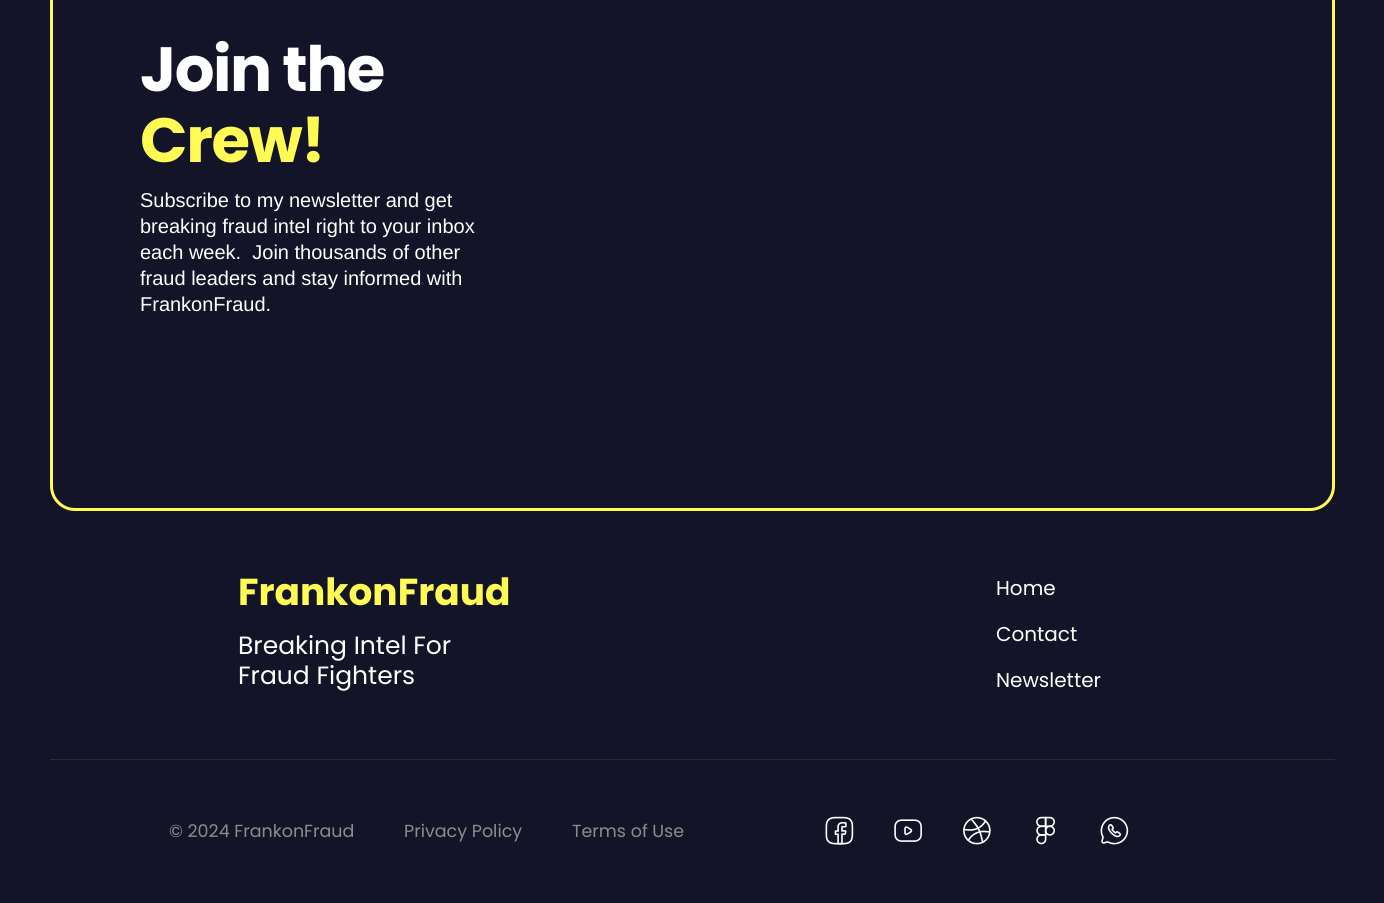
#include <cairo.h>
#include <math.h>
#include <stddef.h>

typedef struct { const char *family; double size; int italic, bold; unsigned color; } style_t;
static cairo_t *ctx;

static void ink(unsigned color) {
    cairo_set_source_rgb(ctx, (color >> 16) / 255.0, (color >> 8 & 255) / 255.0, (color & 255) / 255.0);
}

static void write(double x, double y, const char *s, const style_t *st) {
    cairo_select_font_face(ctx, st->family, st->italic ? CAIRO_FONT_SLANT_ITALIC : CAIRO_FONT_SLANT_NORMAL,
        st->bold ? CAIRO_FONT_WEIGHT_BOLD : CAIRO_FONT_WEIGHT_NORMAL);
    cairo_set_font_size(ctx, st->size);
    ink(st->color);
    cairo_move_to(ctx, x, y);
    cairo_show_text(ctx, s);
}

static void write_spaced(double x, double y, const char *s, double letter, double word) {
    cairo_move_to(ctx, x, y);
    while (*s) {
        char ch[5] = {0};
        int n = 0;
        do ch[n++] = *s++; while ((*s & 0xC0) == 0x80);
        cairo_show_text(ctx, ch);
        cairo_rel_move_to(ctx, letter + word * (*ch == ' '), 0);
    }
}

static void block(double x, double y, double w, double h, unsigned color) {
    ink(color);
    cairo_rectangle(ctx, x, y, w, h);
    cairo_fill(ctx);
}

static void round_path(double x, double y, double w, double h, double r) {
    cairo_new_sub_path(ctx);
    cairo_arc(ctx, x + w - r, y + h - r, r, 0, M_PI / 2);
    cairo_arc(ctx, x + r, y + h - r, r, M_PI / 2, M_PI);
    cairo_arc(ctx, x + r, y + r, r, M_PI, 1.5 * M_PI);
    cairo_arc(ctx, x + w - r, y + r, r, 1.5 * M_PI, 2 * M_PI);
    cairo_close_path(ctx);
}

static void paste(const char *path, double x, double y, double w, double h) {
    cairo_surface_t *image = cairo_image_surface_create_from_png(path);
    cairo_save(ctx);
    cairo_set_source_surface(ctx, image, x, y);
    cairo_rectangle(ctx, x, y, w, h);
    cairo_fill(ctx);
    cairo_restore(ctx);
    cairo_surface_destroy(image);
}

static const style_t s1 = {"Liberation Sans", 20, 0, 0, 0xffffff};
static const style_t s2 = {"Poppins", 37.5, 0, 1, 0xfffb54};
static const style_t s3 = {"Poppins", 25, 0, 0, 0xffffff};
static const style_t s4 = {"Poppins", 20, 0, 0, 0xffffff};
static const style_t s5 = {"Poppins", 17.5, 0, 0, 0x8c8c8c};

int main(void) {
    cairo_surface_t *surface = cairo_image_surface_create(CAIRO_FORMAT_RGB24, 1384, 903);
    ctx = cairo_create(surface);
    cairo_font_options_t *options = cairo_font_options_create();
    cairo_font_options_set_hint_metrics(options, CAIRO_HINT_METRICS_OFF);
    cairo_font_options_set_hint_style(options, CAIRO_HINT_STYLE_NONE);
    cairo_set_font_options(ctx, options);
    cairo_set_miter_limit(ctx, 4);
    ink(0x141428);
    cairo_paint(ctx);
    round_path(51.5, -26.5, 1282, 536, 23.5);
    ink(0xfffb54);
    cairo_set_line_width(ctx, 3);
    cairo_stroke(ctx);
    cairo_select_font_face(ctx, "Poppins", CAIRO_FONT_SLANT_NORMAL, CAIRO_FONT_WEIGHT_BOLD);
    cairo_set_font_size(ctx, 62.5);
    ink(0xffffff);
    write_spaced(140, 91, "Join the", -1.5, 0);
    ink(0xfffb54);
    write_spaced(140, 162, "Crew!", -1.5, 0);
    write(140, 207, "Subscribe to my newsletter and get", &s1);
    write(140, 233, "breaking fraud intel right to your inbox", &s1);
    write(140, 259, "each week.  Join thousands of other", &s1);
    write(140, 285, "fraud leaders and stay informed with", &s1);
    write(140, 311, "FrankonFraud.", &s1);
    write(238, 605, "FrankonFraud", &s2);
    write(238, 654, "Breaking Intel For", &s3);
    write(238, 684, "Fraud Fighters", &s3);
    write(996, 595, "Home", &s4);
    write(996, 641, "Contact", &s4);
    write(996, 687, "Newsletter", &s4);
    block(50, 759, 1285, 1, 0x2c2c2c);
    write(169, 837, "© 2024 FrankonFraud", &s5);
    write(404, 837, "Privacy Policy", &s5);
    write(572, 837, "Terms of Use", &s5);
    paste("pic1.png", 825, 816, 29, 29);
    paste("pic2.png", 894, 819, 28, 23);
    paste("pic3.png", 963, 816, 28, 29);
    paste("pic4.png", 1036, 816, 19, 29);
    paste("pic5.png", 1100, 816, 29, 29);
    cairo_surface_write_to_png(surface, "screenshot.png");
    cairo_font_options_destroy(options);
    cairo_destroy(ctx);
    cairo_surface_destroy(surface);
    return 0;
}
